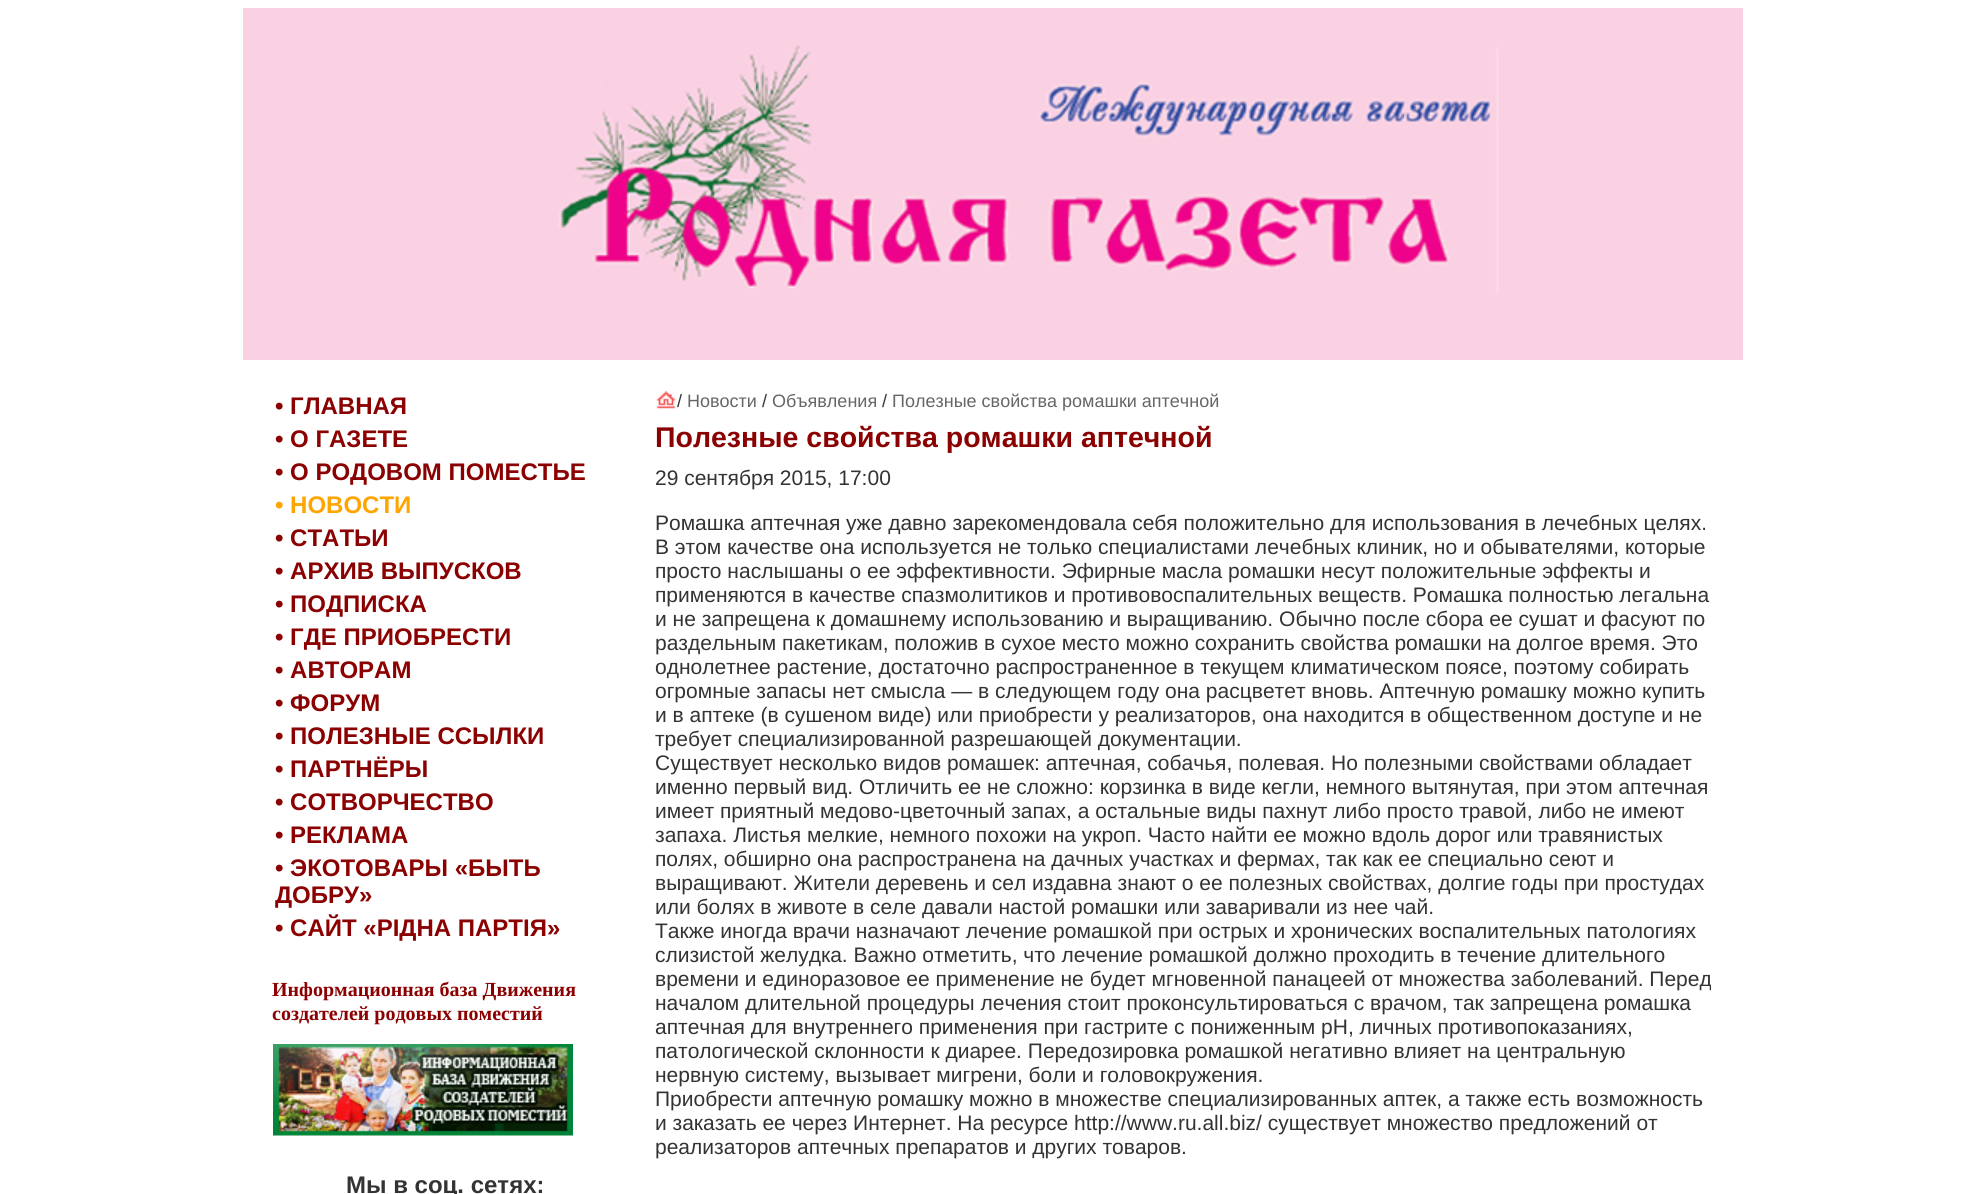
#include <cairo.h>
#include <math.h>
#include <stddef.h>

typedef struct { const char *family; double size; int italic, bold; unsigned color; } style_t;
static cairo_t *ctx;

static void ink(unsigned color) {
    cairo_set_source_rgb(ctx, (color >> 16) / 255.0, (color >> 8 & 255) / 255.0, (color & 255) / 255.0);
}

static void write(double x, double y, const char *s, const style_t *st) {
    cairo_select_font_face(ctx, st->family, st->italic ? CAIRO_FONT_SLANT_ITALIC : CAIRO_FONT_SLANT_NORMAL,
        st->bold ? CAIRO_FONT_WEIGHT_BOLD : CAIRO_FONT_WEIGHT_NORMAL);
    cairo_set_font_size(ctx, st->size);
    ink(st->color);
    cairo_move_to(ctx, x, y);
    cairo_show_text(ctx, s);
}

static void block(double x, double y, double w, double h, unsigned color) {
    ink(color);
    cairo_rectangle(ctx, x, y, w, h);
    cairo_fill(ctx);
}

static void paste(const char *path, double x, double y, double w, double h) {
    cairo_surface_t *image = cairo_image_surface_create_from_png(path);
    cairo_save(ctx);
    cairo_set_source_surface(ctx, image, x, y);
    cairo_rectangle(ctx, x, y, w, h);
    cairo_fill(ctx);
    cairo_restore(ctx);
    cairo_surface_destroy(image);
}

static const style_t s1 = {"Liberation Sans", 24, 0, 1, 0x8b0000};
static const style_t s2 = {"Liberation Sans", 24, 0, 1, 0xffa500};
static const style_t s3 = {"Liberation Serif", 20, 0, 1, 0x8b0000};
static const style_t s4 = {"Liberation Sans", 24, 0, 1, 0x333333};
static const style_t s5 = {"Liberation Sans", 18, 0, 0, 0x333333};
static const style_t s6 = {"Liberation Sans", 18, 0, 0, 0x666666};
static const style_t s7 = {"Liberation Sans", 28.5, 0, 1, 0x8b0000};
static const style_t s8 = {"Liberation Sans", 21, 0, 0, 0x333333};

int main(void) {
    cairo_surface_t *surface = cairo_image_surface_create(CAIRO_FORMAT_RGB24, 1984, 1194);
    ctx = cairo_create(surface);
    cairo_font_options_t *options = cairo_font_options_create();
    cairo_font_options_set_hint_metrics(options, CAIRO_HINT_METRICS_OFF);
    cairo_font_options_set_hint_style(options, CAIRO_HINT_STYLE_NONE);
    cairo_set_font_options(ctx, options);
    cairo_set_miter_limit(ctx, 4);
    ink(0xffffff);
    cairo_paint(ctx);
    block(243, 8, 1500, 352, 0xfad1e3);
    paste("pic1.png", 558, 45, 941, 249);
    write(275, 414, "• ГЛАВНАЯ", &s1);
    write(275, 447, "• О ГАЗЕТЕ", &s1);
    write(275, 480, "• О РОДОВОМ ПОМЕСТЬЕ", &s1);
    write(275, 513, "• НОВОСТИ", &s2);
    write(275, 546, "• СТАТЬИ", &s1);
    write(275, 579, "• АРХИВ ВЫПУСКОВ", &s1);
    write(275, 612, "• ПОДПИСКА", &s1);
    write(275, 645, "• ГДЕ ПРИОБРЕСТИ", &s1);
    write(275, 678, "• АВТОРАМ", &s1);
    write(275, 711, "• ФОРУМ", &s1);
    write(275, 744, "• ПОЛЕЗНЫЕ ССЫЛКИ", &s1);
    write(275, 777, "• ПАРТНЁРЫ", &s1);
    write(275, 810, "• СОТВОРЧЕСТВО", &s1);
    write(275, 843, "• РЕКЛАМА", &s1);
    write(275, 876, "• ЭКОТОВАРЫ «БЫТЬ", &s1);
    write(275, 903, "ДОБРУ»", &s1);
    write(275, 936, "• САЙТ «РІДНА ПАРТІЯ»", &s1);
    write(272, 996, "Информационная база Движения", &s3);
    write(272, 1020, "создателей родовых поместий", &s3);
    paste("pic2.png", 273, 1044, 300, 92);
    write(346, 1193, "Мы в соц. сетях:", &s4);
    paste("pic3.png", 656, 390, 20, 19);
    write(677, 407, "/", &s5);
    write(687, 407, "Новости", &s6);
    write(762, 407, "/", &s5);
    write(772, 407, "Объявления", &s6);
    write(882, 407, "/", &s5);
    write(892, 407, "Полезные свойства ромашки аптечной", &s6);
    write(655, 447, "Полезные свойства ромашки аптечной", &s7);
    write(655, 485, "29 сентября 2015, 17:00", &s8);
    write(655, 530, "Ромашка аптечная уже давно зарекомендовала себя положительно для использования в лечебных целях.", &s8);
    write(655, 554, "В этом качестве она используется не только специалистами лечебных клиник, но и обывателями, которые", &s8);
    write(655, 578, "просто наслышаны о ее эффективности. Эфирные масла ромашки несут положительные эффекты и", &s8);
    write(655, 602, "применяются в качестве спазмолитиков и противовоспалительных веществ. Ромашка полностью легальна", &s8);
    write(655, 626, "и не запрещена к домашнему использованию и выращиванию. Обычно после сбора ее сушат и фасуют по", &s8);
    write(655, 650, "раздельным пакетикам, положив в сухое место можно сохранить свойства ромашки на долгое время. Это", &s8);
    write(655, 674, "однолетнее растение, достаточно распространенное в текущем климатическом поясе, поэтому собирать", &s8);
    write(655, 698, "огромные запасы нет смысла — в следующем году она расцветет вновь. Аптечную ромашку можно купить", &s8);
    write(655, 722, "и в аптеке (в сушеном виде) или приобрести у реализаторов, она находится в общественном доступе и не", &s8);
    write(655, 746, "требует специализированной разрешающей документации.", &s8);
    write(655, 770, "Существует несколько видов ромашек: аптечная, собачья, полевая. Но полезными свойствами обладает", &s8);
    write(655, 794, "именно первый вид. Отличить ее не сложно: корзинка в виде кегли, немного вытянутая, при этом аптечная", &s8);
    write(655, 818, "имеет приятный медово-цветочный запах, а остальные виды пахнут либо просто травой, либо не имеют", &s8);
    write(655, 842, "запаха. Листья мелкие, немного похожи на укроп. Часто найти ее можно вдоль дорог или травянистых", &s8);
    write(655, 866, "полях, обширно она распространена на дачных участках и фермах, так как ее специально сеют и", &s8);
    write(655, 890, "выращивают. Жители деревень и сел издавна знают о ее полезных свойствах, долгие годы при простудах", &s8);
    write(655, 914, "или болях в животе в селе давали настой ромашки или заваривали из нее чай.", &s8);
    write(655, 938, "Также иногда врачи назначают лечение ромашкой при острых и хронических воспалительных патологиях", &s8);
    write(655, 962, "слизистой желудка. Важно отметить, что лечение ромашкой должно проходить в течение длительного", &s8);
    write(655, 986, "времени и единоразовое ее применение не будет мгновенной панацеей от множества заболеваний. Перед", &s8);
    write(655, 1010, "началом длительной процедуры лечения стоит проконсультироваться с врачом, так запрещена ромашка", &s8);
    write(655, 1034, "аптечная для внутреннего применения при гастрите с пониженным pH, личных противопоказаниях,", &s8);
    write(655, 1058, "патологической склонности к диарее. Передозировка ромашкой негативно влияет на центральную", &s8);
    write(655, 1082, "нервную систему, вызывает мигрени, боли и головокружения.", &s8);
    write(655, 1106, "Приобрести аптечную ромашку можно в множестве специализированных аптек, а также есть возможность", &s8);
    write(655, 1130, "и заказать ее через Интернет. На ресурсе http://www.ru.all.biz/ существует множество предложений от", &s8);
    write(655, 1154, "реализаторов аптечных препаратов и других товаров.", &s8);
    cairo_surface_write_to_png(surface, "screenshot.png");
    cairo_font_options_destroy(options);
    cairo_destroy(ctx);
    cairo_surface_destroy(surface);
    return 0;
}
